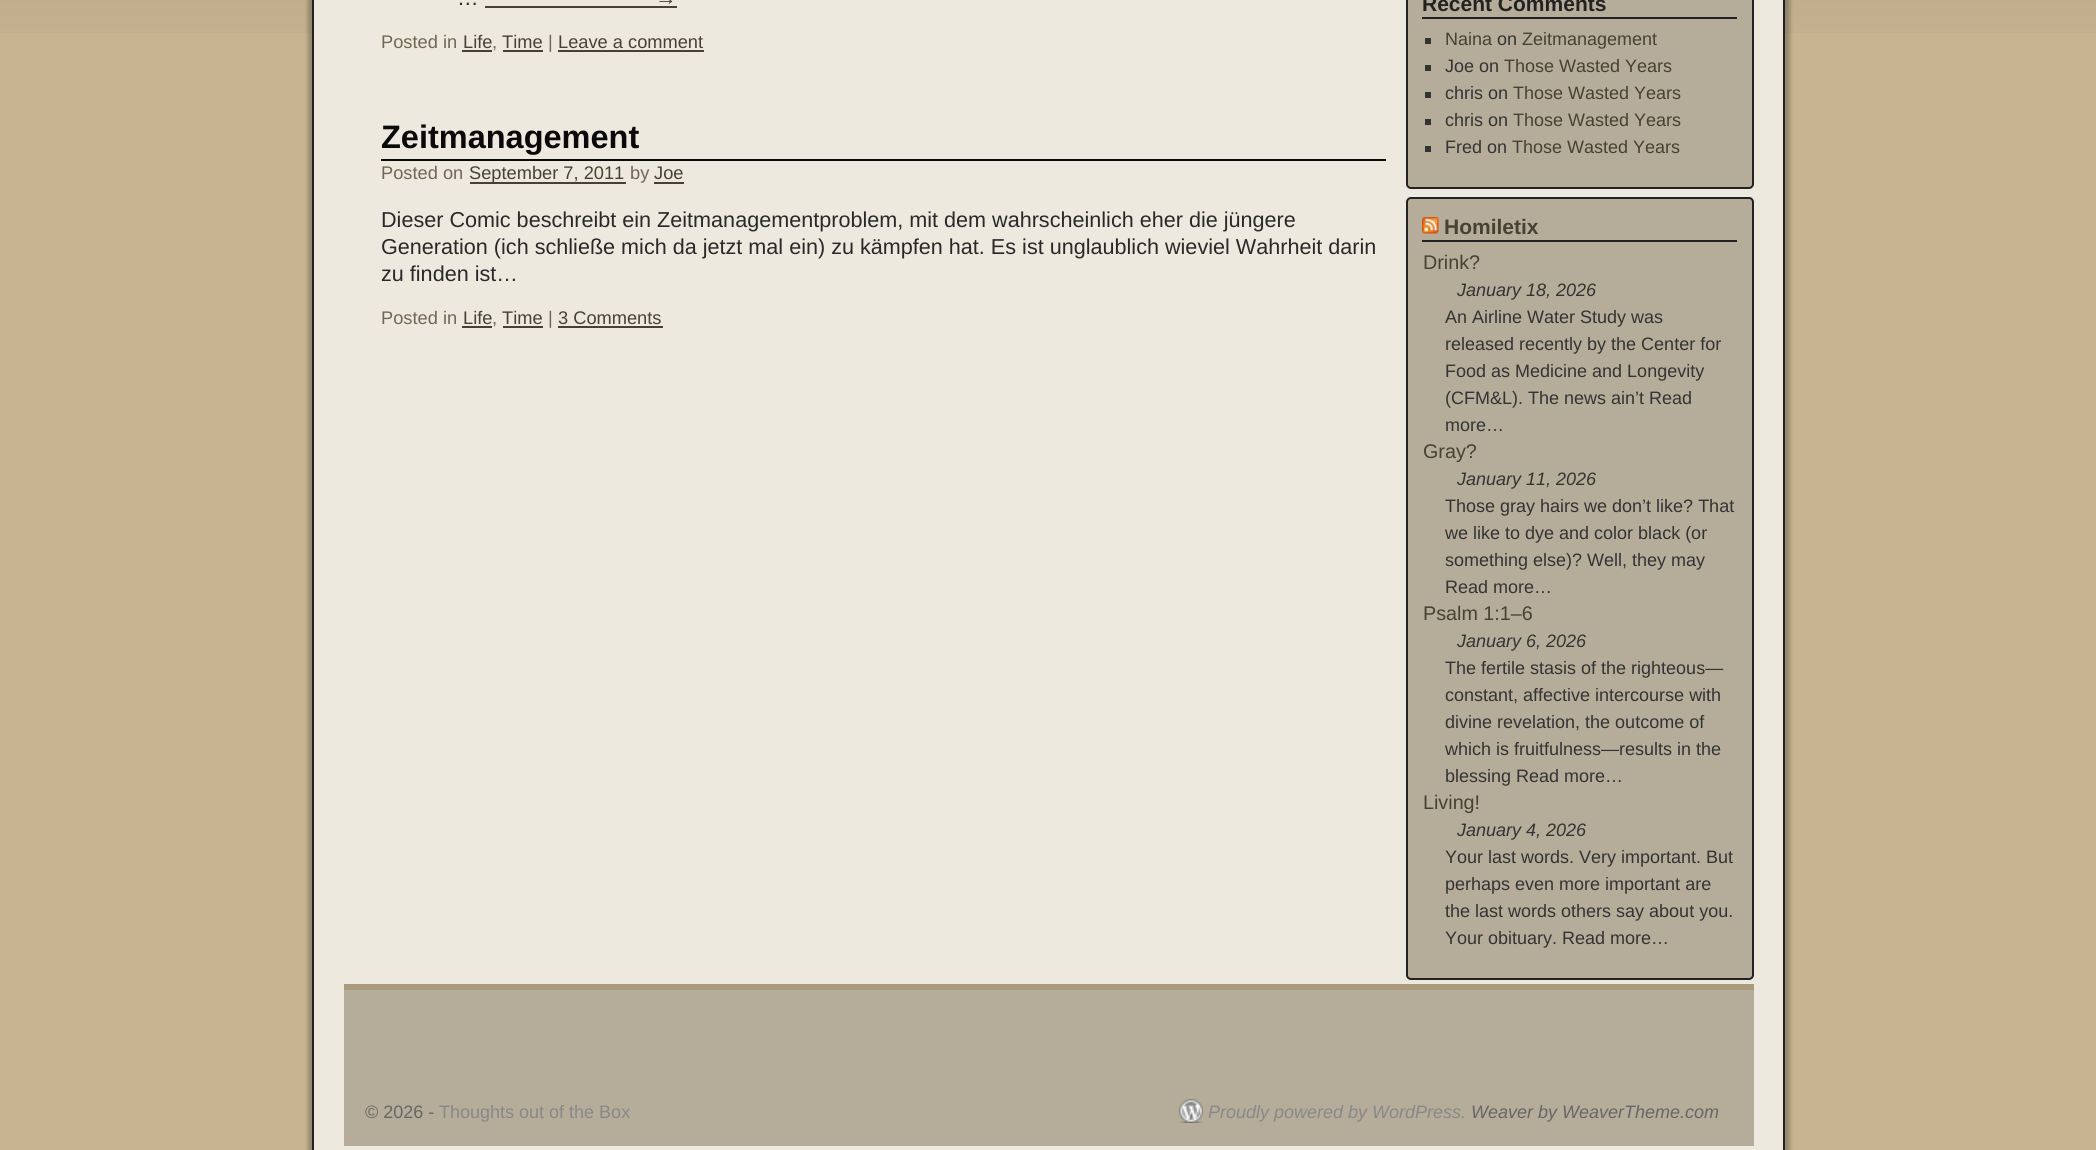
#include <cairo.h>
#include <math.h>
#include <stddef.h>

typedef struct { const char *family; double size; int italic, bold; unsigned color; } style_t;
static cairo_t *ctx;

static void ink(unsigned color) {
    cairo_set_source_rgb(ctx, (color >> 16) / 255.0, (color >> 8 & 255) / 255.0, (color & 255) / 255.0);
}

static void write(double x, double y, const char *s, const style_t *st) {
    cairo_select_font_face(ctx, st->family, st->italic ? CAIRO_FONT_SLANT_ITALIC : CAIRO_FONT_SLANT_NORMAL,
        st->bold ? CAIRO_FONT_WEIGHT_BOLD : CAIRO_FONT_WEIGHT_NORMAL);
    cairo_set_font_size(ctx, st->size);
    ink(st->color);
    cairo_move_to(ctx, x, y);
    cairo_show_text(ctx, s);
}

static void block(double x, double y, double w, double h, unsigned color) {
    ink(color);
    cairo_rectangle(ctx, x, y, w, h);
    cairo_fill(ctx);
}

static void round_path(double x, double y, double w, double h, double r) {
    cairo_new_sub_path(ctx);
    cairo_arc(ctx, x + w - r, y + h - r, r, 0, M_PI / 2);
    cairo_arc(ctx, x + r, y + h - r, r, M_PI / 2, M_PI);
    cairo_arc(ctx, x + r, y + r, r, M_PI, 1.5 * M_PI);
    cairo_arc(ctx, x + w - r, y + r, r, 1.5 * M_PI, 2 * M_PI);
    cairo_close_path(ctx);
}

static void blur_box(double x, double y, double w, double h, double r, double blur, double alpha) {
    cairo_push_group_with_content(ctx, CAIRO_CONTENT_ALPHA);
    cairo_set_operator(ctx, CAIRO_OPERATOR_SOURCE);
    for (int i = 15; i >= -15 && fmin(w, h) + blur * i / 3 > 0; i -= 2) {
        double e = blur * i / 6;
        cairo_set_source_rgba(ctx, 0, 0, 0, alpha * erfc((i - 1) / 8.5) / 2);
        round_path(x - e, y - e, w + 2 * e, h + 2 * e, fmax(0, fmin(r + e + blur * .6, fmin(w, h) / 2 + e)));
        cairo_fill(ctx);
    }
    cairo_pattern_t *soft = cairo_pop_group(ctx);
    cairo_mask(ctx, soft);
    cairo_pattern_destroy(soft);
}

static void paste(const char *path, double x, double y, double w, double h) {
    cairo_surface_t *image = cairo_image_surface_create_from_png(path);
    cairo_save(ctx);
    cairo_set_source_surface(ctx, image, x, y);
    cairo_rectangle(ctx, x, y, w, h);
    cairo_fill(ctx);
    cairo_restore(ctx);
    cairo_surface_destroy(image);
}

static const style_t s1 = {"Liberation Sans", 21.6, 0, 0, 0x292929};
static const style_t s2 = {"Liberation Sans", 21.6, 0, 0, 0x474134};
static const style_t s3 = {"Liberation Sans", 18.25, 0, 0, 0x706752};
static const style_t s4 = {"Liberation Sans", 18.25, 0, 0, 0x474134};
static const style_t s5 = {"Liberation Sans", 32.5, 0, 1, 0x0a0a0a};
static const style_t s6 = {"Liberation Sans", 21, 0, 1, 0x222222};
static const style_t s7 = {"Liberation Sans", 18, 0, 0, 0x474134};
static const style_t s8 = {"Liberation Sans", 18, 0, 0, 0x333333};
static const style_t s9 = {"Liberation Sans", 21, 0, 1, 0x474134};
static const style_t s10 = {"Liberation Sans", 19.75, 0, 0, 0x474134};
static const style_t s11 = {"Liberation Sans", 18, 1, 0, 0x333333};
static const style_t s12 = {"Liberation Sans", 18, 0, 0, 0x666666};
static const style_t s13 = {"Liberation Sans", 18, 0, 0, 0x888888};
static const style_t s14 = {"Liberation Sans", 18, 1, 0, 0x888888};
static const style_t s15 = {"Liberation Sans", 18, 1, 0, 0x666666};

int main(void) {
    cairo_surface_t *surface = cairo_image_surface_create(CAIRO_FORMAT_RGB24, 2096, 1150);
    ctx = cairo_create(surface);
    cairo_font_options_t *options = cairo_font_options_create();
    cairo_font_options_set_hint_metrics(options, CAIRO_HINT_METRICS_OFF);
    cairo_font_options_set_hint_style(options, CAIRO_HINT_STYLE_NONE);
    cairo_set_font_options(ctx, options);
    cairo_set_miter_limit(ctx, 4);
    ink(0xc7b491);
    cairo_paint(ctx);
    paste("pic1.png", 0, 0, 2096, 33);
    ink(0x000000);
    blur_box(308, -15, 1482, 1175, 9, 2, 0.25);
    ink(0xede9df);
    cairo_rectangle(ctx, 313, -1, 1471, 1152);
    cairo_fill_preserve(ctx);
    ink(0x222222);
    cairo_stroke(ctx);
    write(457, 5, "…", &s1);
    write(655, 5, "→", &s2);
    block(485, 6, 192, 2, 0x474134);
    write(381, 48, "Posted in", &s3);
    write(463, 48, "Life", &s4);
    write(492, 48, ",", &s3);
    block(462, 50, 30, 2, 0x474134);
    block(503, 50, 40, 2, 0x474134);
    write(502, 48, "Time", &s4);
    write(548, 48, "|", &s3);
    write(558, 48, "Leave a comment", &s4);
    block(558, 50, 146, 2, 0x474134);
    block(381, 159, 1005, 2, 0x0a0a0a);
    write(381, 148, "Zeitmanagement", &s5);
    write(381, 179, "Posted on", &s3);
    block(470, 182, 156, 2, 0x474134);
    write(469, 179, "September 7, 2011", &s4);
    write(630, 179, "by", &s3);
    write(654, 179, "Joe", &s4);
    block(654, 182, 30, 2, 0x474134);
    write(381, 227, "Dieser Comic beschreibt ein Zeitmanagementproblem, mit dem wahrscheinlich eher die jüngere", &s1);
    write(381, 254, "Generation (ich schließe mich da jetzt mal ein) zu kämpfen hat. Es ist unglaublich wieviel Wahrheit darin", &s1);
    write(381, 281, "zu finden ist…", &s1);
    write(381, 324, "Posted in", &s3);
    write(463, 324, "Life", &s4);
    write(492, 324, ",", &s3);
    block(462, 326, 30, 2, 0x474134);
    block(503, 326, 40, 2, 0x474134);
    write(502, 324, "Time", &s4);
    write(548, 324, "|", &s3);
    write(558, 324, "3 Comments", &s4);
    block(558, 326, 105, 2, 0x474134);
    ink(0xb5ad9a);
    round_path(1407, -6, 346, 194, 4);
    cairo_fill_preserve(ctx);
    ink(0x222222);
    cairo_stroke(ctx);
    block(1422, 17, 315, 2, 0x222222);
    write(1422, 11, "Recent Comments", &s6);
    block(1425, 38, 6, 6, 0x333333);
    write(1445, 45, "Naina", &s7);
    write(1497, 45, "on", &s8);
    write(1522, 45, "Zeitmanagement", &s7);
    block(1425, 65, 6, 6, 0x333333);
    write(1445, 72, "Joe on", &s8);
    write(1504, 72, "Those Wasted Years", &s7);
    block(1425, 92, 6, 6, 0x333333);
    write(1445, 99, "chris on", &s8);
    write(1513, 99, "Those Wasted Years", &s7);
    block(1425, 119, 6, 6, 0x333333);
    write(1445, 126, "chris on", &s8);
    write(1513, 126, "Those Wasted Years", &s7);
    block(1425, 146, 6, 6, 0x333333);
    write(1445, 153, "Fred on", &s8);
    write(1512, 153, "Those Wasted Years", &s7);
    ink(0xb5ad9a);
    round_path(1407, 198, 346, 781, 4);
    cairo_fill_preserve(ctx);
    ink(0x222222);
    cairo_stroke(ctx);
    block(1422, 240, 315, 2, 0x222222);
    paste("pic2.png", 1422, 217, 17, 17);
    write(1444, 234, "Homiletix", &s9);
    write(1423, 269, "Drink?", &s10);
    write(1457, 296, "January 18, 2026", &s11);
    write(1445, 323, "An Airline Water Study was", &s8);
    write(1445, 350, "released recently by the Center for", &s8);
    write(1445, 377, "Food as Medicine and Longevity", &s8);
    write(1445, 404, "(CFM&L). The news ain’t Read", &s8);
    write(1445, 431, "more…", &s8);
    write(1423, 458, "Gray?", &s10);
    write(1457, 485, "January 11, 2026", &s11);
    write(1445, 512, "Those gray hairs we don’t like? That", &s8);
    write(1445, 539, "we like to dye and color black (or", &s8);
    write(1445, 566, "something else)? Well, they may", &s8);
    write(1445, 593, "Read more…", &s8);
    write(1423, 620, "Psalm 1:1–6", &s10);
    write(1457, 647, "January 6, 2026", &s11);
    write(1445, 674, "The fertile stasis of the righteous—", &s8);
    write(1445, 701, "constant, affective intercourse with", &s8);
    write(1445, 728, "divine revelation, the outcome of", &s8);
    write(1445, 755, "which is fruitfulness—results in the", &s8);
    write(1445, 782, "blessing Read more…", &s8);
    write(1423, 809, "Living!", &s10);
    write(1457, 836, "January 4, 2026", &s11);
    write(1445, 863, "Your last words. Very important. But", &s8);
    write(1445, 890, "perhaps even more important are", &s8);
    write(1445, 917, "the last words others say about you.", &s8);
    write(1445, 944, "Your obituary. Read more…", &s8);
    block(344, 990, 1410, 156, 0xb5ad9a);
    block(344, 984, 1410, 6, 0xab9b7d);
    write(365, 1118, "© 2026 -", &s12);
    write(439, 1118, "Thoughts out of the Box", &s13);
    paste("pic3.png", 1179, 1099, 24, 24);
    write(1208, 1118, "Proudly powered by WordPress.", &s14);
    write(1471, 1118, "Weaver by WeaverTheme.com", &s15);
    cairo_surface_write_to_png(surface, "screenshot.png");
    cairo_font_options_destroy(options);
    cairo_destroy(ctx);
    cairo_surface_destroy(surface);
    return 0;
}
